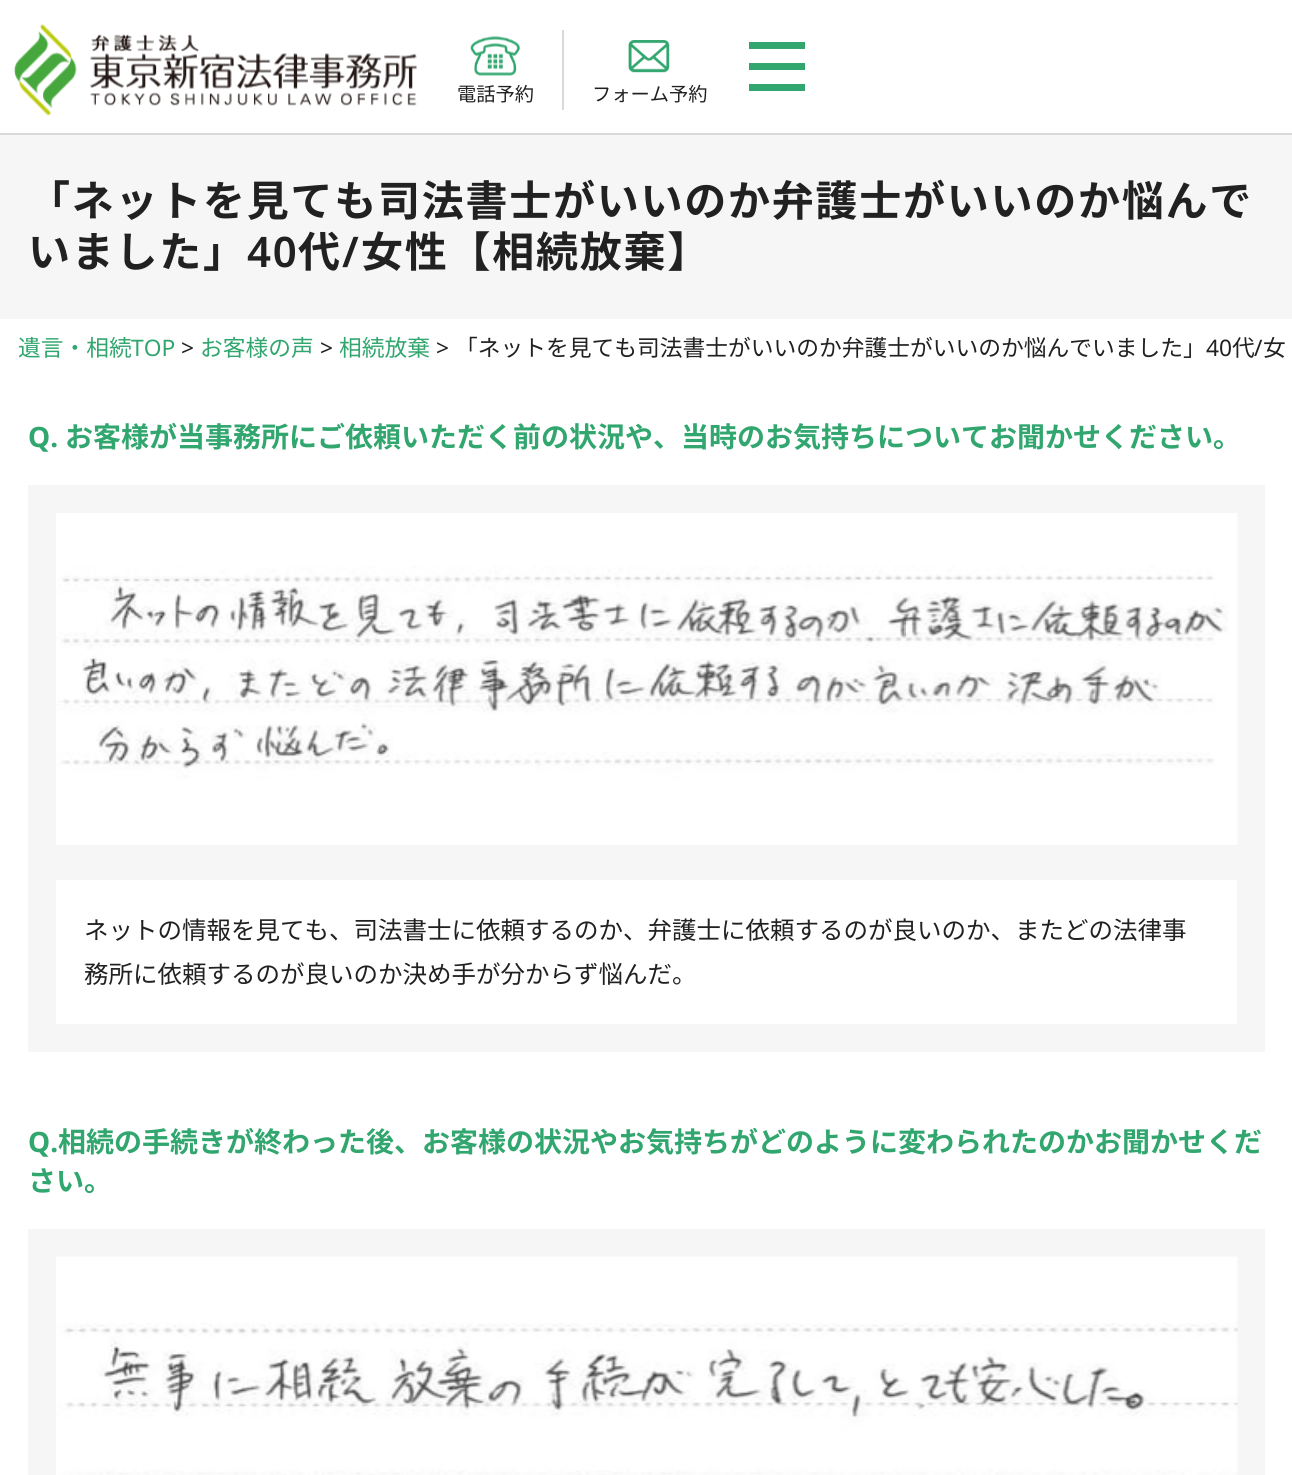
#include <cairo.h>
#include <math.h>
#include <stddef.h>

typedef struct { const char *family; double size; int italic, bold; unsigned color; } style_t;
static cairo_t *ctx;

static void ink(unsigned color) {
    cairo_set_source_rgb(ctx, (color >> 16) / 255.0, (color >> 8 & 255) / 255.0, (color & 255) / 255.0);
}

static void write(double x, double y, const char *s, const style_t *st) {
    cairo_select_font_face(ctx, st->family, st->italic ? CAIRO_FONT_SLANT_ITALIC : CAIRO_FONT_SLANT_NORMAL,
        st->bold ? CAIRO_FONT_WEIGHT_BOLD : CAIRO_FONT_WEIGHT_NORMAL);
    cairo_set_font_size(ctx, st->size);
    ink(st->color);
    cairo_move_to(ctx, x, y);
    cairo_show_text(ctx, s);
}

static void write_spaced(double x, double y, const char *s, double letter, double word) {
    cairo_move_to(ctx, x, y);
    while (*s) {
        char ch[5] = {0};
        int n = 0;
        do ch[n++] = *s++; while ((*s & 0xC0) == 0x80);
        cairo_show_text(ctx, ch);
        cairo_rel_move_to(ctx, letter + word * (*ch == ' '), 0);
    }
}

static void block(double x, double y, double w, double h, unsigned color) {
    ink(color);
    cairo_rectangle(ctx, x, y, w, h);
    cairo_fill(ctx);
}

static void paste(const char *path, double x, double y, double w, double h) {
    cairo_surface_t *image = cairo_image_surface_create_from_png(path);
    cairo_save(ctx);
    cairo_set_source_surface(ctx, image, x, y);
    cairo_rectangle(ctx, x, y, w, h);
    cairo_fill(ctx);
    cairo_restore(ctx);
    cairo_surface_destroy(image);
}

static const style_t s1 = {"Noto Sans CJK JP", 19.25, 0, 0, 0x212121};
static const style_t s2 = {"Noto Sans CJK JP", 22.75, 0, 0, 0x31a66e};
static const style_t s3 = {"Noto Sans", 22.75, 0, 0, 0x31a66e};
static const style_t s4 = {"Noto Sans", 22.75, 0, 0, 0x212121};
static const style_t s5 = {"Noto Sans CJK JP", 22.75, 0, 0, 0x212121};
static const style_t s6 = {"Noto Sans", 28, 0, 1, 0x31a66e};
static const style_t s7 = {"Noto Sans CJK JP", 28, 0, 1, 0x31a66e};
static const style_t s8 = {"Noto Sans CJK JP", 24.5, 0, 0, 0x212121};

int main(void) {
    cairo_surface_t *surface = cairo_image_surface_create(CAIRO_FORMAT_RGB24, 1292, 1475);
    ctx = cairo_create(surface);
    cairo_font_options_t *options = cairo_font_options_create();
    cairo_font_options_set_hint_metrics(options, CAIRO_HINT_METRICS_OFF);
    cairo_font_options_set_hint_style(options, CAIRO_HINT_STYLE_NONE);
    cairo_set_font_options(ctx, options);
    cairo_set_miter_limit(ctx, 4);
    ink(0xffffff);
    cairo_paint(ctx);
    block(0, 133, 1292, 2, 0xd9d9d9);
    paste("pic1.png", 14, 24, 403, 92);
    block(749, 42, 56, 7, 0x31a66e);
    block(749, 63, 56, 7, 0x31a66e);
    block(749, 84, 56, 7, 0x31a66e);
    paste("pic2.png", 470, 36, 50, 40);
    write(457, 101, "電話予約", &s1);
    block(562, 30, 2, 80, 0xd9d9d9);
    paste("pic3.png", 628, 40, 42, 33);
    write(592, 101, "フォーム予約", &s1);
    block(0, 135, 1292, 184, 0xf6f6f6);
    cairo_select_font_face(ctx, "Noto Sans CJK JP", CAIRO_FONT_SLANT_NORMAL, CAIRO_FONT_WEIGHT_BOLD);
    cairo_set_font_size(ctx, 42);
    ink(0x212121);
    write_spaced(28, 216, "「ネットを見ても司法書士がいいのか弁護士がいいのか悩んで", 1.75, 0);
    write_spaced(28, 267, "いました」", 1.75, 0);
    cairo_select_font_face(ctx, "Noto Sans SemiBold", CAIRO_FONT_SLANT_NORMAL, CAIRO_FONT_WEIGHT_NORMAL);
    write_spaced(247, 267, "40", 1.75, 0);
    cairo_select_font_face(ctx, "Noto Sans CJK JP", CAIRO_FONT_SLANT_NORMAL, CAIRO_FONT_WEIGHT_BOLD);
    write_spaced(298, 267, "代", 1.75, 0);
    cairo_select_font_face(ctx, "Noto Sans SemiBold", CAIRO_FONT_SLANT_NORMAL, CAIRO_FONT_WEIGHT_NORMAL);
    write_spaced(342, 267, "/", 1.75, 0);
    cairo_select_font_face(ctx, "Noto Sans CJK JP", CAIRO_FONT_SLANT_NORMAL, CAIRO_FONT_WEIGHT_BOLD);
    write_spaced(361, 267, "女性【相続放棄】", 1.75, 0);
    write(18, 356, "遺言・相続", &s2);
    write(131, 356, "TOP", &s3);
    write(181, 356, ">", &s4);
    write(200, 356, "お客様の声", &s2);
    write(320, 356, ">", &s4);
    write(339, 356, "相続放棄", &s2);
    write(436, 356, ">", &s4);
    write(455, 356, "「ネットを見ても司法書士がいいのか弁護士がいいのか悩んでいました」", &s5);
    write(1206, 356, "40", &s4);
    write(1232, 356, "代", &s5);
    write(1254, 356, "/", &s4);
    write(1263, 356, "女", &s5);
    write(28, 447, "Q.", &s6);
    write(65, 447, "お客様が当事務所にご依頼いただく前の状況や、当時のお気持ちについてお聞かせください。", &s7);
    block(28, 485, 1237, 567, 0xf6f6f6);
    paste("pic4.png", 56, 513, 1182, 332);
    block(56, 880, 1181, 144, 0xffffff);
    write(84, 939, "ネットの情報を見ても、司法書士に依頼するのか、弁護士に依頼するのが良いのか、またどの法律事", &s8);
    write(84, 983, "務所に依頼するのが良いのか決め手が分からず悩んだ。", &s8);
    write(28, 1152, "Q.", &s6);
    write(58, 1152, "相続の手続きが終わった後、お客様の状況やお気持ちがどのように変わられたのかお聞かせくだ", &s7);
    write(28, 1191, "さい。", &s7);
    block(28, 1229, 1237, 246, 0xf6f6f6);
    paste("pic5.png", 56, 1256, 1182, 219);
    cairo_surface_write_to_png(surface, "screenshot.png");
    cairo_font_options_destroy(options);
    cairo_destroy(ctx);
    cairo_surface_destroy(surface);
    return 0;
}
